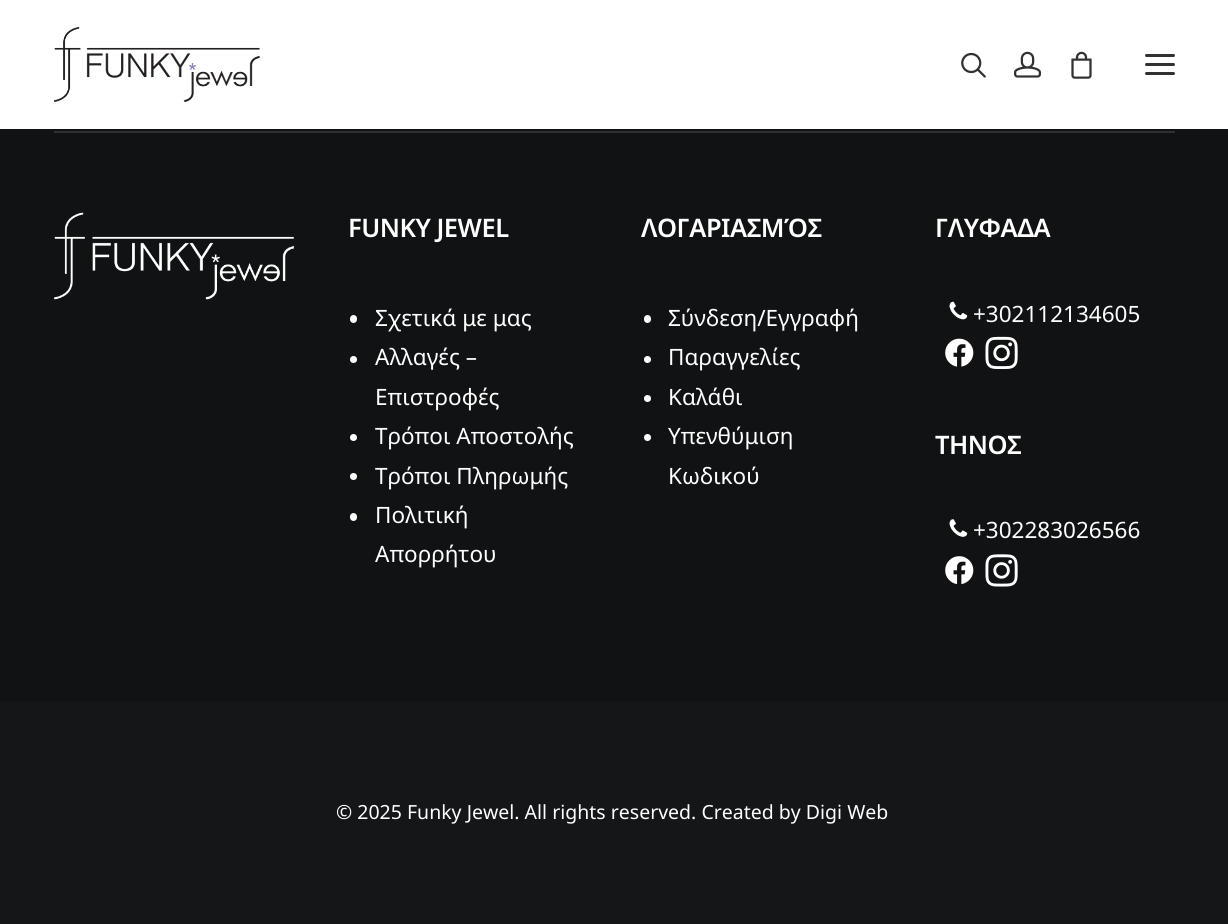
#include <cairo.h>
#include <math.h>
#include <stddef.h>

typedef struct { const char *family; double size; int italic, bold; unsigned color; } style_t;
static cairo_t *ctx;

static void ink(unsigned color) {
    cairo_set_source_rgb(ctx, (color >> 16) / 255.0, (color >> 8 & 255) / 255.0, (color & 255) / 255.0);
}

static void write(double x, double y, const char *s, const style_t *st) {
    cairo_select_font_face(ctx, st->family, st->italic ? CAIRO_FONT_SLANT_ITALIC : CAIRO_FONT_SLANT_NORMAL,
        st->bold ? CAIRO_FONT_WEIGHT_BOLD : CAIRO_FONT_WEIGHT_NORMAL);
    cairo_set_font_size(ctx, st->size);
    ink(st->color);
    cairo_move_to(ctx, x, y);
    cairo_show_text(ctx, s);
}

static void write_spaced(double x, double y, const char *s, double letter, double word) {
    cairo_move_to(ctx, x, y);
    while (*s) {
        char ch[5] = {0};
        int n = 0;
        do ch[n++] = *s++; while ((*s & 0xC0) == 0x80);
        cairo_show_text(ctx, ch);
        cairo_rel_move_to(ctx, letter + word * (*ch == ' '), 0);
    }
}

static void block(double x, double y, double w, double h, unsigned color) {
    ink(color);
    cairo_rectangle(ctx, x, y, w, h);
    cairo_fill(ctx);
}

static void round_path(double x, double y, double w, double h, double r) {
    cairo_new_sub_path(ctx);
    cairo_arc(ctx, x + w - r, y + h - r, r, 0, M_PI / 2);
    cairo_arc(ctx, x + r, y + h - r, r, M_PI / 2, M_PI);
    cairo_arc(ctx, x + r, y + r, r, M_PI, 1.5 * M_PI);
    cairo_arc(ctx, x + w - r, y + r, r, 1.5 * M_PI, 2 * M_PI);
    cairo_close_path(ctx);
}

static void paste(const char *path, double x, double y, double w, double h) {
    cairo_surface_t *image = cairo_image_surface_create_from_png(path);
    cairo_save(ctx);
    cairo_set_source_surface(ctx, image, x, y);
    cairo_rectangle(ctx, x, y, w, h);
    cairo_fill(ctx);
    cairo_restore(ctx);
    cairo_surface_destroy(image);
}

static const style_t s1 = {"Noto Sans", 22.5, 0, 0, 0xffffff};
static const style_t s2 = {"Noto Sans", 19.5, 0, 0, 0xffffff};

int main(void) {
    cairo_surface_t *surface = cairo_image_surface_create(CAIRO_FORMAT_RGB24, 1228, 924);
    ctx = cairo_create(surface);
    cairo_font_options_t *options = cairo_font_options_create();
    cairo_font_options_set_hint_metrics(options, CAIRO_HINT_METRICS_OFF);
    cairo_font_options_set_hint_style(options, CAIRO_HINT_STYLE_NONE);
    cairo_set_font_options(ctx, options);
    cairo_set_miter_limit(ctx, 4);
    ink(0x141618);
    cairo_paint(ctx);
    block(0, 0, 1228, 129, 0xffffff);
    paste("pic1.png", 54, 27, 206, 75);
    paste("pic2.png", 961, 52, 25, 26);
    paste("pic3.png", 1014, 51, 27, 27);
    paste("pic4.png", 1071, 51, 21, 28);
    ink(0x303133);
    round_path(1145, 63, 30, 3, 1.5);
    cairo_fill(ctx);
    round_path(1145, 54, 30, 3, 1.5);
    cairo_fill(ctx);
    round_path(1145, 72, 30, 3, 1.5);
    cairo_fill(ctx);
    block(0, 129, 1228, 572, 0x101213);
    block(54, 131, 1121, 2, 0x303133);
    paste("pic5.png", 54, 212, 240, 88);
    cairo_select_font_face(ctx, "Noto Sans SemiBold", CAIRO_FONT_SLANT_NORMAL, CAIRO_FONT_WEIGHT_NORMAL);
    cairo_set_font_size(ctx, 25.5);
    ink(0xffffff);
    write_spaced(348, 237, "FUNKY JEWEL", -0.5, 0);
    round_path(350, 315, 7, 8, 3.5);
    cairo_fill(ctx);
    write(375, 326, "Σχετικά με μας", &s1);
    cairo_new_path(ctx);
    cairo_arc(ctx, 353.5, 359.5, 3.5, 0, 2 * M_PI);
    cairo_fill(ctx);
    write(375, 365, "Αλλαγές –", &s1);
    write(375, 405, "Επιστροφές", &s1);
    cairo_new_path(ctx);
    cairo_arc(ctx, 353.5, 437.5, 3.5, 0, 2 * M_PI);
    cairo_fill(ctx);
    write(375, 444, "Τρόποι Αποστολής", &s1);
    cairo_new_path(ctx);
    cairo_arc(ctx, 353.5, 476.5, 3.5, 0, 2 * M_PI);
    cairo_fill(ctx);
    write(375, 484, "Τρόποι Πληρωμής", &s1);
    round_path(350, 513, 7, 8, 3.5);
    cairo_fill(ctx);
    write(375, 523, "Πολιτική", &s1);
    write(375, 562, "Απορρήτου", &s1);
    cairo_select_font_face(ctx, "Noto Sans SemiBold", CAIRO_FONT_SLANT_NORMAL, CAIRO_FONT_WEIGHT_NORMAL);
    cairo_set_font_size(ctx, 25.5);
    write_spaced(641, 237, "ΛΟΓΑΡΙΑΣΜΌΣ", -0.5, 0);
    round_path(644, 315, 7, 8, 3.5);
    cairo_fill(ctx);
    write(668, 326, "Σύνδεση/Εγγραφή", &s1);
    cairo_new_path(ctx);
    cairo_arc(ctx, 647.5, 359.5, 3.5, 0, 2 * M_PI);
    cairo_fill(ctx);
    write(668, 365, "Παραγγελίες", &s1);
    cairo_new_path(ctx);
    cairo_arc(ctx, 647.5, 398.5, 3.5, 0, 2 * M_PI);
    cairo_fill(ctx);
    write(668, 405, "Καλάθι", &s1);
    cairo_new_path(ctx);
    cairo_arc(ctx, 647.5, 437.5, 3.5, 0, 2 * M_PI);
    cairo_fill(ctx);
    write(668, 444, "Υπενθύμιση", &s1);
    write(668, 484, "Κωδικού", &s1);
    cairo_select_font_face(ctx, "Noto Sans SemiBold", CAIRO_FONT_SLANT_NORMAL, CAIRO_FONT_WEIGHT_NORMAL);
    cairo_set_font_size(ctx, 25.5);
    write_spaced(935, 237, "ΓΛΥΦΑΔΑ", -0.5, 0);
    paste("pic6.png", 949, 301, 19, 19);
    write(973, 322, "+302112134605", &s1);
    paste("pic7.png", 945, 338, 29, 29);
    paste("pic8.png", 985, 336, 33, 33);
    cairo_select_font_face(ctx, "Noto Sans SemiBold", CAIRO_FONT_SLANT_NORMAL, CAIRO_FONT_WEIGHT_NORMAL);
    cairo_set_font_size(ctx, 25.5);
    write_spaced(935, 454, "ΤΗΝΟΣ", -0.5, 0);
    paste("pic9.png", 949, 519, 19, 18);
    write(973, 538, "+302283026566", &s1);
    paste("pic10.png", 945, 556, 29, 29);
    paste("pic11.png", 985, 554, 33, 33);
    write(336, 819, "© 2025 Funky Jewel. All rights reserved. Created by Digi Web", &s2);
    cairo_surface_write_to_png(surface, "screenshot.png");
    cairo_font_options_destroy(options);
    cairo_destroy(ctx);
    cairo_surface_destroy(surface);
    return 0;
}
